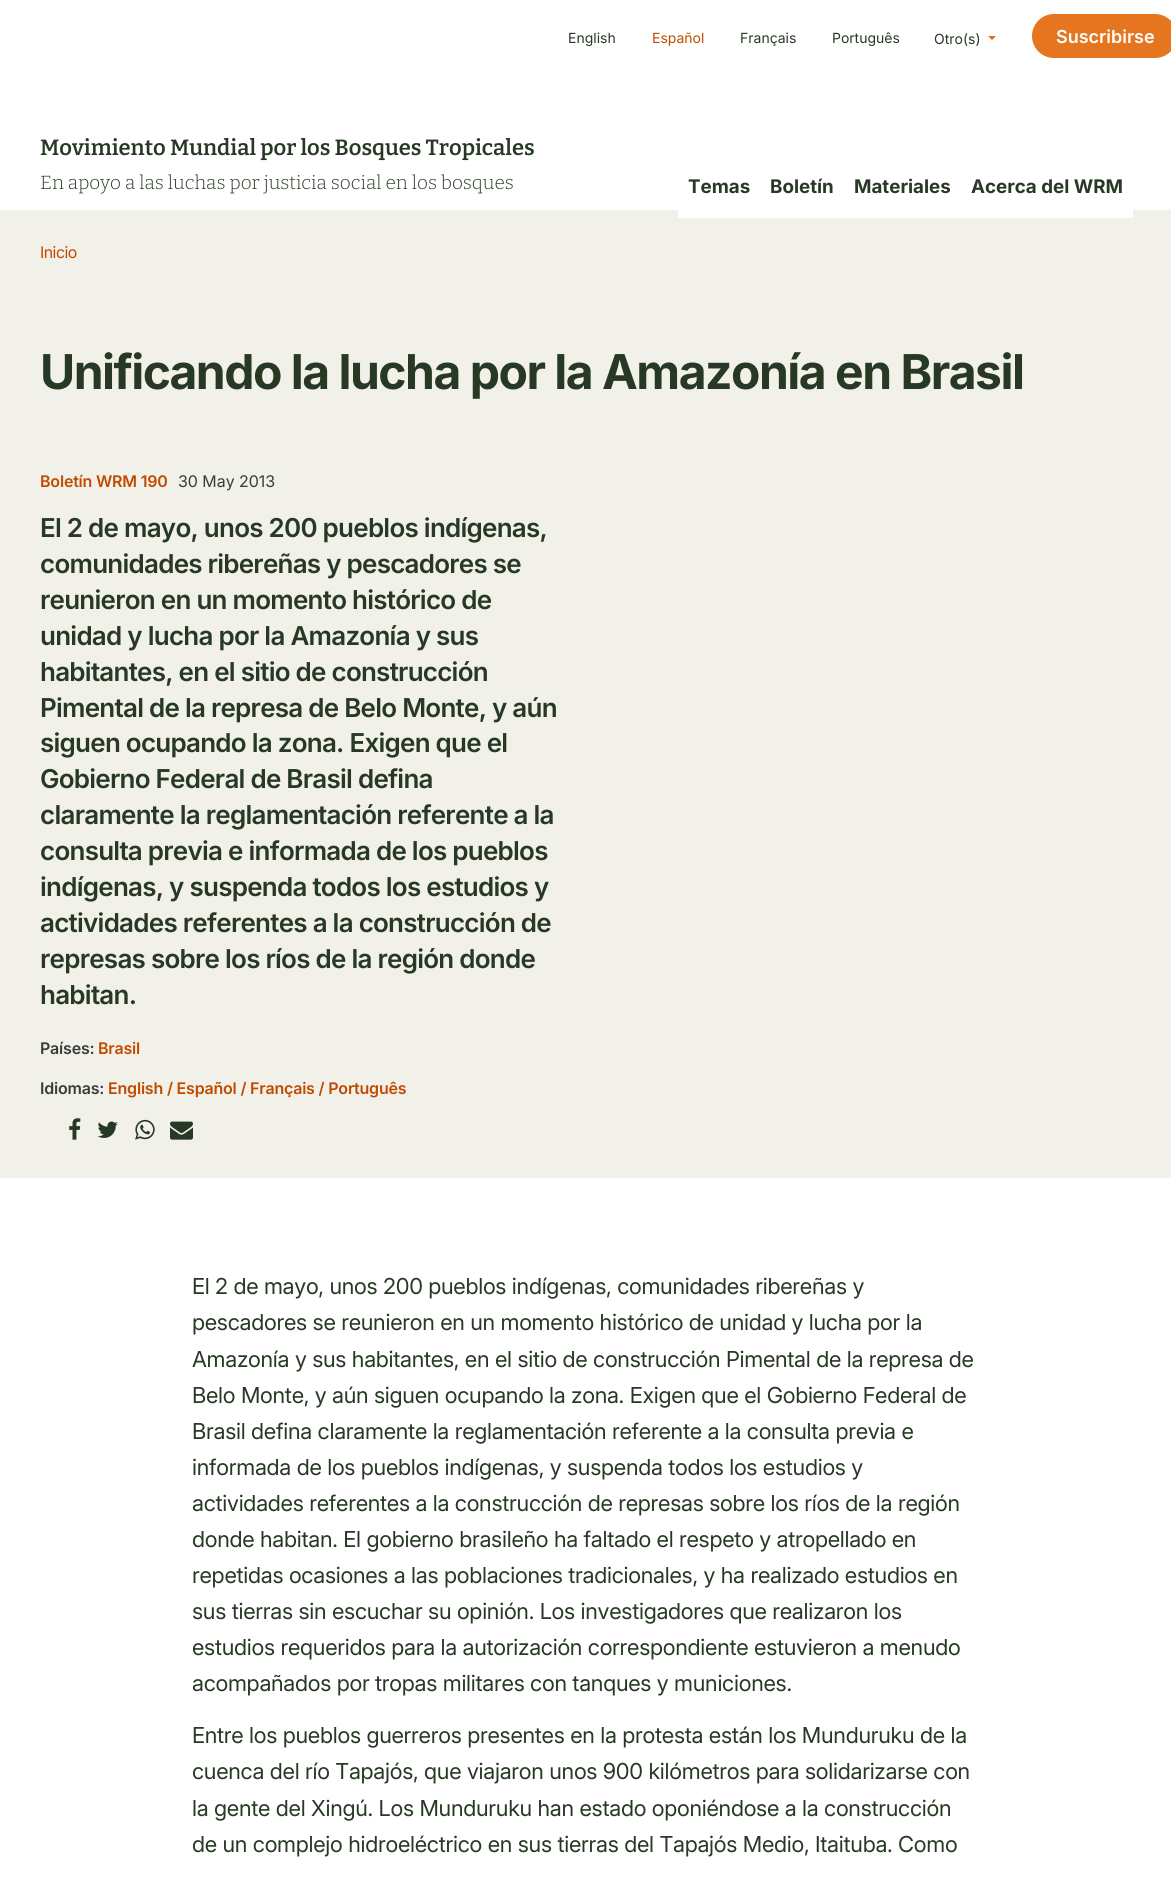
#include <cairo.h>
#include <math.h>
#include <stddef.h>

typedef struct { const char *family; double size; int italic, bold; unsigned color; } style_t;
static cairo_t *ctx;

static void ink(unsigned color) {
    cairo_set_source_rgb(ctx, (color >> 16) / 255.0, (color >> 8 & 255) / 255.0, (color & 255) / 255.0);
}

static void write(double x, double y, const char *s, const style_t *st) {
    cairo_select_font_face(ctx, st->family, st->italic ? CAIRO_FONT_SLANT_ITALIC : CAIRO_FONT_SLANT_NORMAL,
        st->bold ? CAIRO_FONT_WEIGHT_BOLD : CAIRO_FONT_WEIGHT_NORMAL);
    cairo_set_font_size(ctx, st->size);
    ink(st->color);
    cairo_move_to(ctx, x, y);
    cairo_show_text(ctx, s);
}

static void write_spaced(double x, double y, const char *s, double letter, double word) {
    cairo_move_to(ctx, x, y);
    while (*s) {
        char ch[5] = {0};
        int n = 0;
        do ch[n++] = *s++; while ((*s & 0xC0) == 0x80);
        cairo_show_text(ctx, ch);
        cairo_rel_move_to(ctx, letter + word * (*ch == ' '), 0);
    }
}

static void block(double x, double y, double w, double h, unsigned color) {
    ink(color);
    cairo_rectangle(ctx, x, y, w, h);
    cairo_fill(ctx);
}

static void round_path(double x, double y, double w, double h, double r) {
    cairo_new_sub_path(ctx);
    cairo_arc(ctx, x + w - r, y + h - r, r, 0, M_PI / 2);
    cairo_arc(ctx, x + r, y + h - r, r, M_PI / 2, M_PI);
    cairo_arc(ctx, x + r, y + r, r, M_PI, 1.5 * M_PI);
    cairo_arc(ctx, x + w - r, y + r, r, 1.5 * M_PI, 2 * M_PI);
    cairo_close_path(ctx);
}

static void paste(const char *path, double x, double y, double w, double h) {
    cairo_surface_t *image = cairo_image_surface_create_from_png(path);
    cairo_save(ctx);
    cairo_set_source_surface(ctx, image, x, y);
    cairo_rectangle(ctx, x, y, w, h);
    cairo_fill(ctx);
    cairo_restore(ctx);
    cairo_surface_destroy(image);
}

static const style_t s1 = {"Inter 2", 14, 0, 0, 0x273924};
static const style_t s2 = {"Inter 2", 14, 0, 0, 0xc24a00};
static const style_t s3 = {"Inter SemiBold", 18, 0, 0, 0xffffff};
static const style_t s4 = {"Bitter SemiBold", 22, 0, 0, 0x273924};
static const style_t s5 = {"Bitter Light", 19, 0, 0, 0x273924};
static const style_t s6 = {"Inter", 18.75, 0, 1, 0x273924};
static const style_t s7 = {"Inter", 16, 0, 0, 0x3b3b3b};

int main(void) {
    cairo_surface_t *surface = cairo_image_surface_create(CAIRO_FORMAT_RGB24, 1171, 1880);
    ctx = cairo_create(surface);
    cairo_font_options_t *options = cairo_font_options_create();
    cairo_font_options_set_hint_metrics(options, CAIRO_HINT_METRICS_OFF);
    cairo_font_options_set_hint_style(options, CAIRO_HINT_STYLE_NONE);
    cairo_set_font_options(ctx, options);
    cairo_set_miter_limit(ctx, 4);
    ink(0xffffff);
    cairo_paint(ctx);
    write(568, 43, "English", &s1);
    write(652, 43, "Español", &s2);
    write(740, 43, "Français", &s1);
    write(832, 43, "Português", &s1);
    write(934, 44, "Otro(s)", &s1);
    ink(0xe56a0e);
    cairo_new_path(ctx);
    cairo_move_to(ctx, 988, 36);
    cairo_line_to(ctx, 996, 36);
    cairo_line_to(ctx, 992, 40);
    cairo_close_path(ctx);
    cairo_fill(ctx);
    ink(0xe67520);
    round_path(1032, 14, 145, 44, 22);
    cairo_fill(ctx);
    write(1056, 43, "Suscribirse", &s3);
    write(40, 155, "Movimiento Mundial por los Bosques Tropicales", &s4);
    write(40, 189, "En apoyo a las luchas por justicia social en los bosques", &s5);
    block(0, 210, 1171, 968, 0xf1f1e9);
    block(678, 210, 455, 8, 0xffffff);
    write(688, 193, "Temas", &s6);
    write(770, 193, "Boletín", &s6);
    write(854, 193, "Materiales", &s6);
    write(971, 193, "Acerca del WRM", &s6);
    cairo_select_font_face(ctx, "Inter", CAIRO_FONT_SLANT_NORMAL, CAIRO_FONT_WEIGHT_NORMAL);
    cairo_set_font_size(ctx, 16);
    ink(0xc24a00);
    write_spaced(40, 258, "Inicio", -0.5, 0);
    cairo_select_font_face(ctx, "Inter", CAIRO_FONT_SLANT_NORMAL, CAIRO_FONT_WEIGHT_BOLD);
    cairo_set_font_size(ctx, 48);
    ink(0x273924);
    write_spaced(40, 389, "Unificando la lucha por la Amazonía en Brasil", -1.5, 0);
    cairo_select_font_face(ctx, "Inter SemiBold", CAIRO_FONT_SLANT_NORMAL, CAIRO_FONT_WEIGHT_NORMAL);
    cairo_set_font_size(ctx, 16);
    ink(0xc24a00);
    write_spaced(40, 487, "Boletín WRM 190", -0.2, 0);
    write(178, 487, "30 May 2013", &s7);
    cairo_select_font_face(ctx, "Inter SemiBold", CAIRO_FONT_SLANT_NORMAL, CAIRO_FONT_WEIGHT_NORMAL);
    cairo_set_font_size(ctx, 26);
    ink(0x273924);
    write_spaced(40, 537, "El 2 de mayo, unos 200 pueblos indígenas,", -0.75, 0);
    write_spaced(40, 573, "comunidades ribereñas y pescadores se", -0.75, 0);
    write_spaced(40, 609, "reunieron en un momento histórico de", -0.75, 0);
    write_spaced(40, 645, "unidad y lucha por la Amazonía y sus", -0.75, 0);
    write_spaced(40, 681, "habitantes, en el sitio de construcción", -0.75, 0);
    write_spaced(40, 717, "Pimental de la represa de Belo Monte, y aún", -0.75, 0);
    write_spaced(40, 752, "siguen ocupando la zona. Exigen que el", -0.75, 0);
    write_spaced(40, 788, "Gobierno Federal de Brasil defina", -0.75, 0);
    write_spaced(40, 824, "claramente la reglamentación referente a la", -0.75, 0);
    write_spaced(40, 860, "consulta previa e informada de los pueblos", -0.75, 0);
    write_spaced(40, 896, "indígenas, y suspenda todos los estudios y", -0.75, 0);
    write_spaced(40, 932, "actividades referentes a la construcción de", -0.75, 0);
    write_spaced(40, 968, "represas sobre los ríos de la región donde", -0.75, 0);
    write_spaced(40, 1004, "habitan.", -0.75, 0);
    cairo_set_font_size(ctx, 16);
    ink(0x3b3b3b);
    write_spaced(40, 1054, "Países:", -0.2, 0);
    ink(0xc24a00);
    write_spaced(98, 1054, "Brasil", -0.2, 0);
    ink(0x3b3b3b);
    write_spaced(40, 1094, "Idiomas:", -0.2, 0);
    ink(0xc24a00);
    write_spaced(108, 1094, "English / Español / Français / Português", -0.2, 0);
    paste("pic1.png", 69, 1118, 12, 22);
    paste("pic2.png", 97, 1121, 21, 17);
    paste("pic3.png", 135, 1119, 20, 21);
    paste("pic4.png", 170, 1121, 23, 19);
    cairo_select_font_face(ctx, "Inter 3", CAIRO_FONT_SLANT_NORMAL, CAIRO_FONT_WEIGHT_NORMAL);
    cairo_set_font_size(ctx, 22);
    ink(0x273924);
    write_spaced(192, 1294, "El 2 de mayo, unos 200 pueblos indígenas, comunidades ribereñas y", -0.25, 0);
    write_spaced(192, 1330, "pescadores se reunieron en un momento histórico de unidad y lucha por la", -0.25, 0);
    write_spaced(192, 1367, "Amazonía y sus habitantes, en el sitio de construcción Pimental de la represa de", -0.25, 0);
    write_spaced(192, 1403, "Belo Monte, y aún siguen ocupando la zona. Exigen que el Gobierno Federal de", -0.25, 0);
    write_spaced(192, 1439, "Brasil defina claramente la reglamentación referente a la consulta previa e", -0.25, 0);
    write_spaced(192, 1475, "informada de los pueblos indígenas, y suspenda todos los estudios y", -0.25, 0);
    write_spaced(192, 1511, "actividades referentes a la construcción de represas sobre los ríos de la región", -0.25, 0);
    write_spaced(192, 1547, "donde habitan. El gobierno brasileño ha faltado el respeto y atropellado en", -0.25, 0);
    write_spaced(192, 1583, "repetidas ocasiones a las poblaciones tradicionales, y ha realizado estudios en", -0.25, 0);
    write_spaced(192, 1619, "sus tierras sin escuchar su opinión. Los investigadores que realizaron los", -0.25, 0);
    write_spaced(192, 1655, "estudios requeridos para la autorización correspondiente estuvieron a menudo", -0.25, 0);
    write_spaced(192, 1691, "acompañados por tropas militares con tanques y municiones.", -0.25, 0);
    write_spaced(192, 1743, "Entre los pueblos guerreros presentes en la protesta están los Munduruku de la", -0.25, 0);
    write_spaced(192, 1779, "cuenca del río Tapajós, que viajaron unos 900 kilómetros para solidarizarse con", -0.25, 0);
    write_spaced(192, 1816, "la gente del Xingú. Los Munduruku han estado oponiéndose a la construcción", -0.25, 0);
    write_spaced(192, 1852, "de un complejo hidroeléctrico en sus tierras del Tapajós Medio, Itaituba. Como", -0.25, 0);
    cairo_surface_write_to_png(surface, "screenshot.png");
    cairo_font_options_destroy(options);
    cairo_destroy(ctx);
    cairo_surface_destroy(surface);
    return 0;
}
